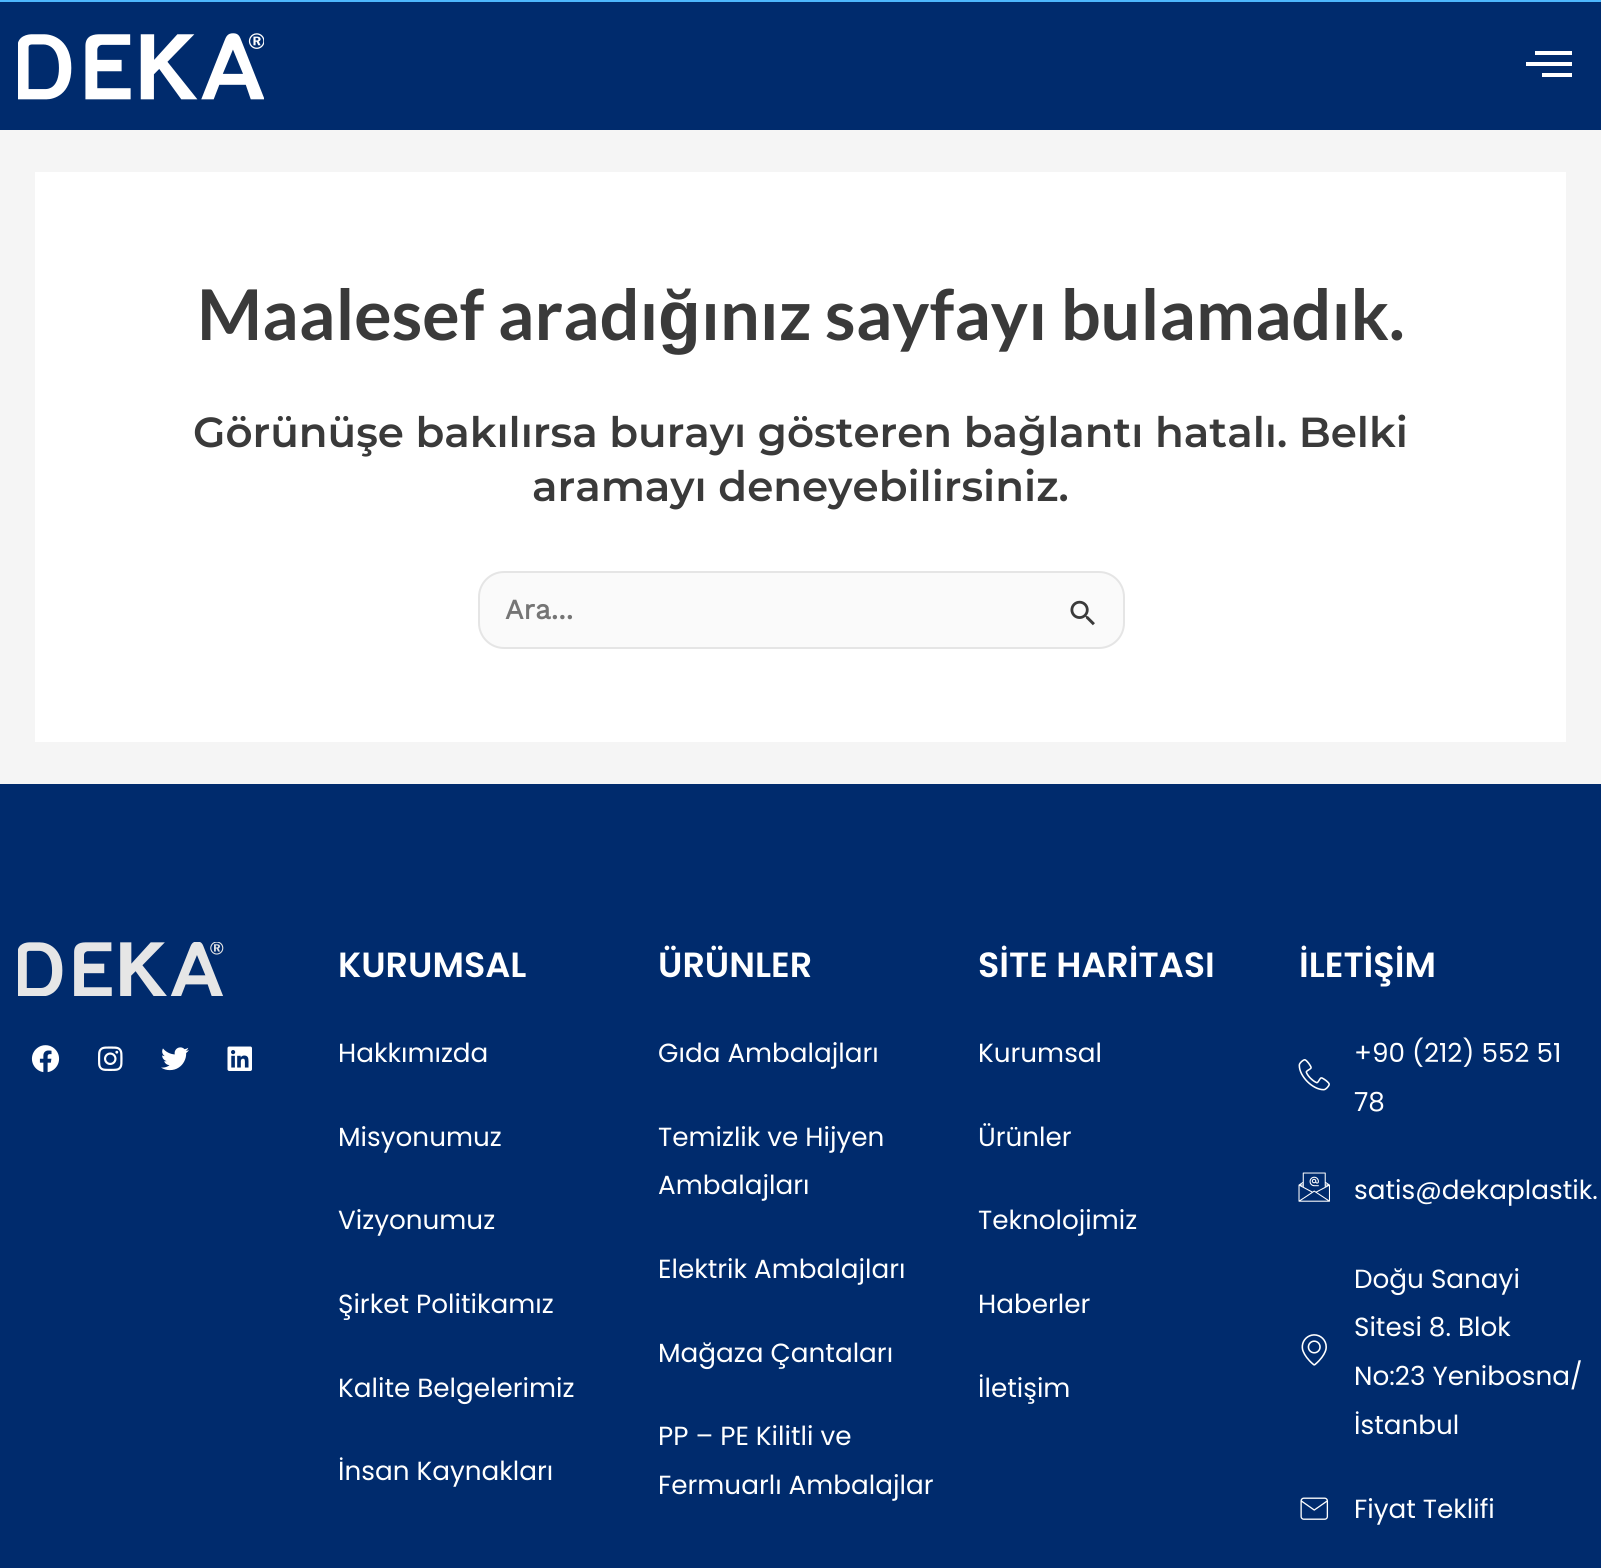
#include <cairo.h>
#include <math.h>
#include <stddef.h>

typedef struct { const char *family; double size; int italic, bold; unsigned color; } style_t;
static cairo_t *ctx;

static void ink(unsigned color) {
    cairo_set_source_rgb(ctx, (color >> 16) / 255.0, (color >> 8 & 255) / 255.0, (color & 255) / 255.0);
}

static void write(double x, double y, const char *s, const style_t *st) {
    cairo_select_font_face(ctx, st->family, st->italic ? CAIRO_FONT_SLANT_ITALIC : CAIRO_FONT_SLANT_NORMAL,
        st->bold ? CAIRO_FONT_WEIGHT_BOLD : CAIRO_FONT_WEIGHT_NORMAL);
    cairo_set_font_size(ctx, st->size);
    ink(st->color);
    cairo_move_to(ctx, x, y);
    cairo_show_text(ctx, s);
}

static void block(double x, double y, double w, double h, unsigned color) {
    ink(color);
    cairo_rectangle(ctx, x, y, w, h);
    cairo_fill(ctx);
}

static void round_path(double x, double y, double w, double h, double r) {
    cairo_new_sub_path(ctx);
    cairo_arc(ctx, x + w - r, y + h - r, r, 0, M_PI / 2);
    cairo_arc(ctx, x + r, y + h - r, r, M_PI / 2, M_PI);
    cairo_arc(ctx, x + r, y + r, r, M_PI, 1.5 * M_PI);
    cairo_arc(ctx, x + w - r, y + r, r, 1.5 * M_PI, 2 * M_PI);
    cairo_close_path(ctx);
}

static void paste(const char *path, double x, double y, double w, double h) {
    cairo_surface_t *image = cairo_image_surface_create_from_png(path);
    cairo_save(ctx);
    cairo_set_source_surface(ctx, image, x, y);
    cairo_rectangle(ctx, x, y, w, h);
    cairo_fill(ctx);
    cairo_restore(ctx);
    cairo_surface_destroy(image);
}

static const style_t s1 = {"Lato", 70, 0, 1, 0x3a3a3a};
static const style_t s2 = {"Liberation Sans", 70, 0, 1, 0x3a3a3a};
static const style_t s3 = {"Montserrat SemiBold", 42, 0, 0, 0x3a3a3a};
static const style_t s4 = {"Work Sans", 28, 0, 1, 0x757575};
static const style_t s5 = {"Poppins SemiBold", 35, 0, 0, 0xffffff};
static const style_t s6 = {"Poppins", 26.25, 0, 0, 0xffffff};

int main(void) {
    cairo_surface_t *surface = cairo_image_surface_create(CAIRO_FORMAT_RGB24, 1601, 1568);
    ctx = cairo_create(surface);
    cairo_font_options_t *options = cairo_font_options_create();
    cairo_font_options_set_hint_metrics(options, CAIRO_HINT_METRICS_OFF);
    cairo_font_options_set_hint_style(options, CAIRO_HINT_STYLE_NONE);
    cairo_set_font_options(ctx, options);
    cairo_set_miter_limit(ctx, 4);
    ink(0xf5f5f5);
    cairo_paint(ctx);
    block(0, 2, 1601, 128, 0x002b6d);
    block(0, 0, 1601, 2, 0x4db7fe);
    paste("pic1.png", 18, 33, 246, 67);
    ink(0xffffff);
    cairo_new_path(ctx);
    cairo_move_to(ctx, 1526, 66);
    cairo_line_to(ctx, 1572, 66);
    cairo_line_to(ctx, 1572, 62);
    cairo_line_to(ctx, 1526, 62);
    cairo_close_path(ctx);
    cairo_move_to(ctx, 1542, 77);
    cairo_line_to(ctx, 1572, 77);
    cairo_line_to(ctx, 1572, 73);
    cairo_line_to(ctx, 1542, 73);
    cairo_close_path(ctx);
    cairo_move_to(ctx, 1535, 51);
    cairo_line_to(ctx, 1535, 55);
    cairo_line_to(ctx, 1572, 55);
    cairo_line_to(ctx, 1572, 51);
    cairo_close_path(ctx);
    cairo_fill(ctx);
    block(35, 172, 1531, 570, 0xffffff);
    write(197, 340, "Maalesef aradı", &s1);
    write(658, 340, "ğ", &s2);
    write(701, 340, "ınız sayfayı bulamadık.", &s1);
    write(193, 447, "Görünüşe bakılırsa burayı gösteren bağlantı hatalı. Belki", &s3);
    write(532, 501, "aramayı deneyebilirsiniz.", &s3);
    ink(0xfafafa);
    round_path(479, 572, 645, 76, 25);
    cairo_fill_preserve(ctx);
    ink(0xe5e5e5);
    cairo_stroke(ctx);
    write(505, 619, "Ara...", &s4);
    paste("pic2.png", 1070, 600, 25, 26);
    block(0, 784, 1601, 784, 0x002b6d);
    paste("pic3.png", 18, 942, 206, 54);
    paste("pic4.png", 31, 1045, 29, 28);
    paste("pic5.png", 98, 1046, 25, 25);
    paste("pic6.png", 161, 1047, 28, 24);
    paste("pic7.png", 227, 1046, 25, 25);
    write(338, 977, "KURUMSAL", &s5);
    write(338, 1062, "Hakkımızda", &s6);
    write(338, 1146, "Misyonumuz", &s6);
    write(338, 1229, "Vizyonumuz", &s6);
    write(338, 1313, "Şirket Politikamız", &s6);
    write(338, 1397, "Kalite Belgelerimiz", &s6);
    write(338, 1480, "İnsan Kaynakları", &s6);
    write(658, 977, "ÜRÜNLER", &s5);
    write(658, 1062, "Gıda Ambalajları", &s6);
    write(658, 1146, "Temizlik ve Hijyen", &s6);
    write(658, 1194, "Ambalajları", &s6);
    write(658, 1278, "Elektrik Ambalajları", &s6);
    write(658, 1362, "Mağaza Çantaları", &s6);
    write(658, 1445, "PP – PE Kilitli ve", &s6);
    write(658, 1494, "Fermuarlı Ambalajlar", &s6);
    write(978, 977, "SİTE HARİTASI", &s5);
    write(978, 1062, "Kurumsal", &s6);
    write(978, 1146, "Ürünler", &s6);
    write(978, 1229, "Teknolojimiz", &s6);
    write(978, 1313, "Haberler", &s6);
    write(978, 1397, "İletişim", &s6);
    write(1299, 977, "İLETİŞİM", &s5);
    paste("pic8.png", 1298, 1059, 32, 32);
    write(1354, 1062, "+90 (212) 552 51", &s6);
    write(1354, 1111, "78", &s6);
    paste("pic9.png", 1298, 1172, 32, 30);
    write(1354, 1199, "satis@dekaplastik.", &s6);
    paste("pic10.png", 1301, 1334, 26, 32);
    write(1354, 1288, "Doğu Sanayi", &s6);
    write(1354, 1336, "Sitesi 8. Blok", &s6);
    write(1354, 1385, "No:23 Yenibosna/", &s6);
    write(1354, 1434, "İstanbul", &s6);
    paste("pic11.png", 1300, 1497, 29, 23);
    write(1354, 1518, "Fiyat Teklifi", &s6);
    cairo_surface_write_to_png(surface, "screenshot.png");
    cairo_font_options_destroy(options);
    cairo_destroy(ctx);
    cairo_surface_destroy(surface);
    return 0;
}
